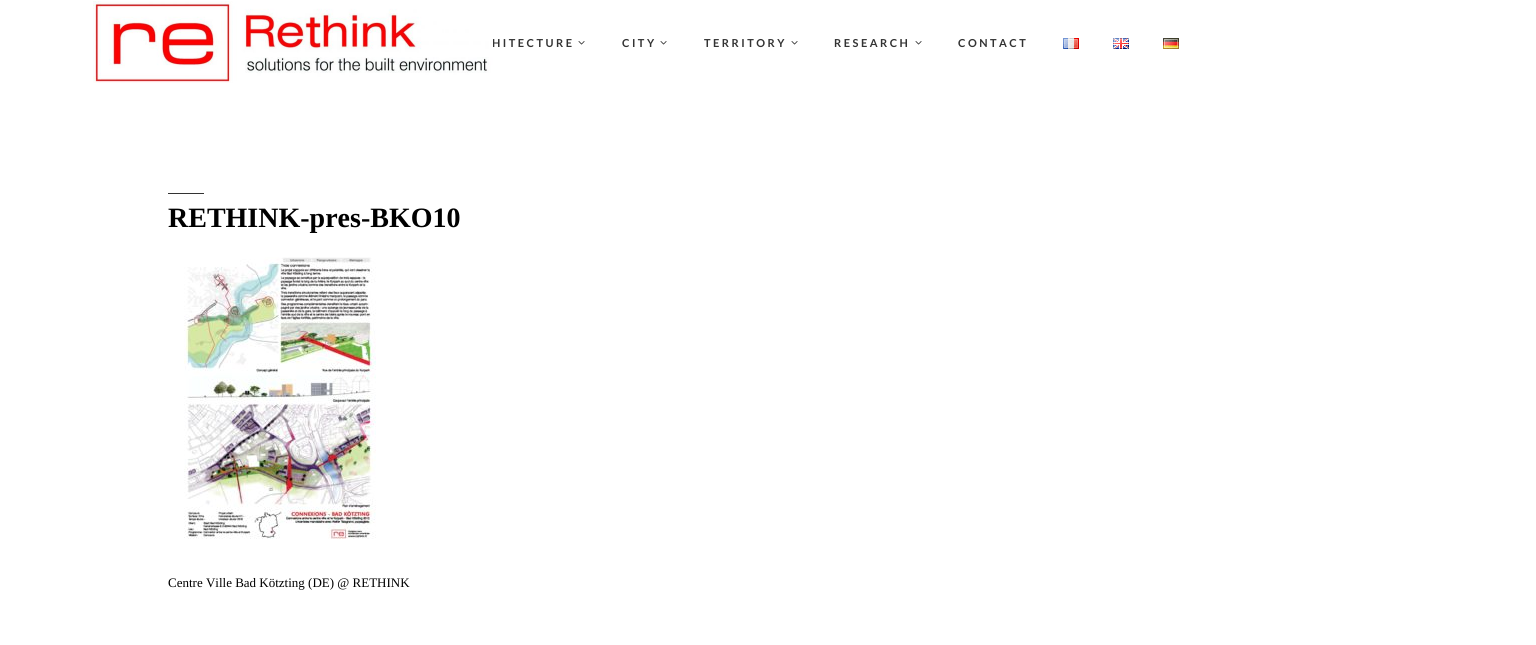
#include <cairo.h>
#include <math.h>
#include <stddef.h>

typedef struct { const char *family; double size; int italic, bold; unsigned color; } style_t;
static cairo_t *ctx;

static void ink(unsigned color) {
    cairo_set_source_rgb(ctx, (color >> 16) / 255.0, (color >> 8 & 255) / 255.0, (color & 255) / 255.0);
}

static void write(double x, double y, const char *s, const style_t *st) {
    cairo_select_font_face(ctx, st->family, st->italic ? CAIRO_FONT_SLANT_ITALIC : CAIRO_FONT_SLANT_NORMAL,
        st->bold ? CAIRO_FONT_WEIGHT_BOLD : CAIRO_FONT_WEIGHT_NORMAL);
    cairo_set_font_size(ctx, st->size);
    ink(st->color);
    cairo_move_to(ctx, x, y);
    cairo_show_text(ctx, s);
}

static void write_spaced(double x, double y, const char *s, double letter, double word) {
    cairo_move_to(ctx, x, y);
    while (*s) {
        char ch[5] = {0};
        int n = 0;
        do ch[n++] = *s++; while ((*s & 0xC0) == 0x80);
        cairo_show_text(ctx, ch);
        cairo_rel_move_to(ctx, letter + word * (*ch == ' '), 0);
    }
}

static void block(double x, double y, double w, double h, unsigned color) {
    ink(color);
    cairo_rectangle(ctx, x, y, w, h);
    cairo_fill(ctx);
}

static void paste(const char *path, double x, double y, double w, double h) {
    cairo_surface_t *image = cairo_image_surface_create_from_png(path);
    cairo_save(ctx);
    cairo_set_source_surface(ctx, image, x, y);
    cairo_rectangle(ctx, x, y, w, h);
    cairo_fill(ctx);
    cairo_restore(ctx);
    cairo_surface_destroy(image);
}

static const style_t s1 = {"Liberation Serif", 28, 0, 1, 0x000000};
static const style_t s2 = {"Liberation Serif", 13, 0, 0, 0x000000};

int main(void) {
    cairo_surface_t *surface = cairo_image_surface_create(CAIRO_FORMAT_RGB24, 1536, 645);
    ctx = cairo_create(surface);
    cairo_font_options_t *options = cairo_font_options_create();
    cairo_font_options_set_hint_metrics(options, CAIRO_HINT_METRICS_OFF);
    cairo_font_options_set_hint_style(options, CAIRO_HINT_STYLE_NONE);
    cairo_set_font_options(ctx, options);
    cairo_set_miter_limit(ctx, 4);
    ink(0xffffff);
    cairo_paint(ctx);
    cairo_select_font_face(ctx, "Lato", CAIRO_FONT_SLANT_NORMAL, CAIRO_FONT_WEIGHT_BOLD);
    cairo_set_font_size(ctx, 11);
    ink(0x333333);
    write_spaced(492, 47, "HITECTURE", 2.5, 0);
    paste("pic1.png", 93, 1, 400, 82);
    paste("pic2.png", 578, 41, 7, 4);
    write_spaced(622, 47, "CITY", 2.5, 0);
    paste("pic2.png", 660, 41, 7, 4);
    write_spaced(704, 47, "TERRITORY", 2.5, 0);
    paste("pic2.png", 791, 41, 7, 4);
    write_spaced(834, 47, "RESEARCH", 2.5, 0);
    paste("pic2.png", 915, 41, 7, 4);
    write_spaced(958, 47, "CONTACT", 2.5, 0);
    paste("pic3.png", 1063, 38, 16, 11);
    paste("pic4.png", 1113, 38, 16, 11);
    paste("pic5.png", 1163, 38, 16, 11);
    block(168, 193, 36, 1, 0x333333);
    write(168, 227, "RETHINK-pres-BKO10", &s1);
    paste("pic6.png", 184, 257, 192, 282);
    write(168, 587, "Centre Ville Bad Kötzting (DE) @ RETHINK", &s2);
    cairo_surface_write_to_png(surface, "screenshot.png");
    cairo_font_options_destroy(options);
    cairo_destroy(ctx);
    cairo_surface_destroy(surface);
    return 0;
}
